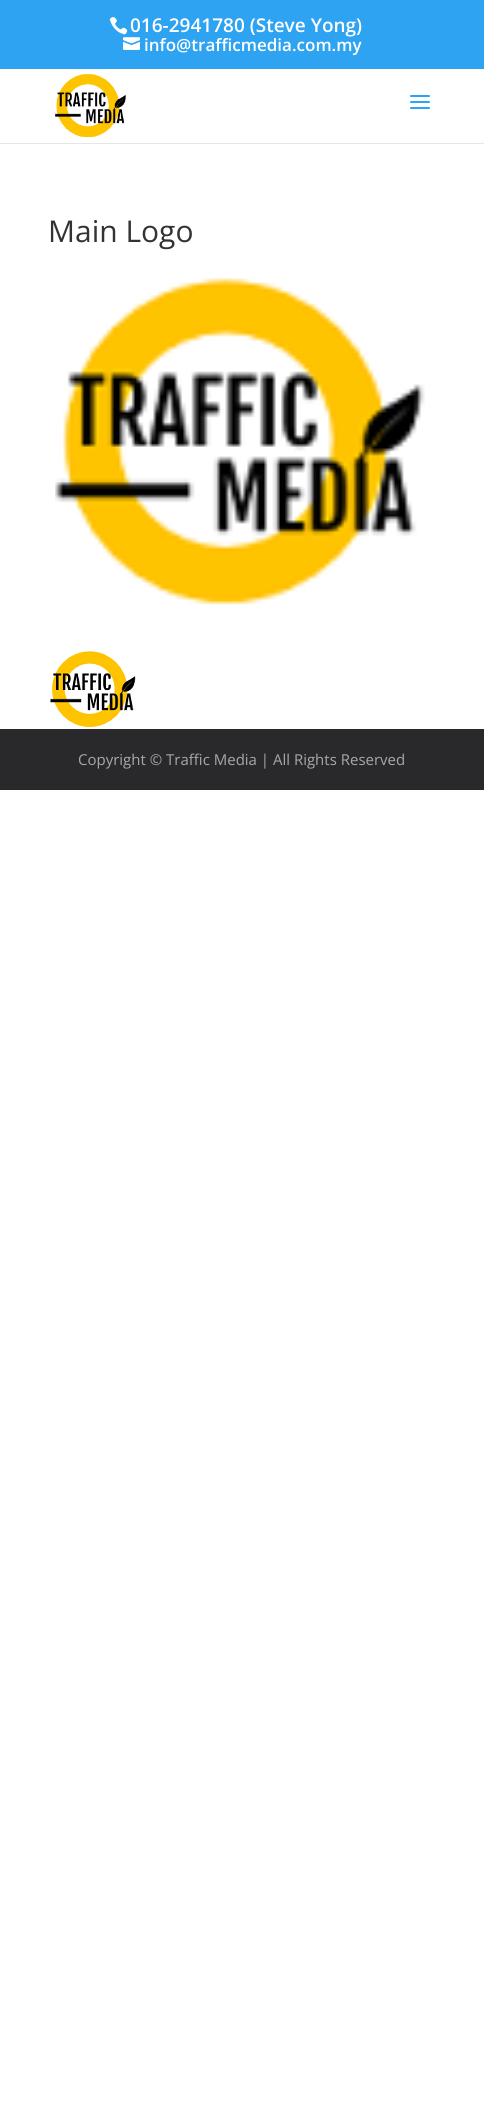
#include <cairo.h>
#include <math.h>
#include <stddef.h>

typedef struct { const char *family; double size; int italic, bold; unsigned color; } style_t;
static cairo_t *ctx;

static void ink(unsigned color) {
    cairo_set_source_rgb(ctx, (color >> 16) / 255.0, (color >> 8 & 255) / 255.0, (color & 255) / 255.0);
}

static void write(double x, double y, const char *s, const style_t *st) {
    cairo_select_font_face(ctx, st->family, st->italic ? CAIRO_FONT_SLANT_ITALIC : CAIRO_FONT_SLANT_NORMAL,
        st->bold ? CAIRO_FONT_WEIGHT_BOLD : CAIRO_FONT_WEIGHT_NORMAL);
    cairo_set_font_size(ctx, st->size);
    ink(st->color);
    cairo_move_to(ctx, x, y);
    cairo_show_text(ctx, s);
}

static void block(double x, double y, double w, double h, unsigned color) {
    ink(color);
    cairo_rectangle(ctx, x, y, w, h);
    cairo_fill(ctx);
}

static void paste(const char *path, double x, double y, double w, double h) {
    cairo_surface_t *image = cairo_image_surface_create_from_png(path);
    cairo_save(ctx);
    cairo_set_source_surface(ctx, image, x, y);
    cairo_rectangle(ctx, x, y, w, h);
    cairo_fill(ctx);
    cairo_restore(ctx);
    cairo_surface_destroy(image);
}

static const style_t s1 = {"Open Sans SemiBold", 19, 0, 0, 0xffffff};
static const style_t s2 = {"Open Sans SemiBold", 17, 0, 0, 0xffffff};
static const style_t s3 = {"Open Sans", 30, 0, 0, 0x333333};
static const style_t s4 = {"Open Sans", 15, 0, 0, 0xa8a8a8};

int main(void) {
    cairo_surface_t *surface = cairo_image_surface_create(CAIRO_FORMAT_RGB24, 484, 2108);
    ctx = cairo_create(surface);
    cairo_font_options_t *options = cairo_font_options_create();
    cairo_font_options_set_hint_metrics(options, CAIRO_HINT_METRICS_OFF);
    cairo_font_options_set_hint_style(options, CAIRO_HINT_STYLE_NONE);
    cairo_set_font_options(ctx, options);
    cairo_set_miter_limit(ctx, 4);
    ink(0xffffff);
    cairo_paint(ctx);
    block(0, 0, 484, 69, 0x2ea3f2);
    paste("pic1.png", 109, 17, 19, 18);
    write(130, 32, "016-2941780 (Steve Yong)", &s1);
    paste("pic2.png", 123, 37, 17, 13);
    write(144, 51, "info@trafficmedia.com.my", &s2);
    block(0, 143, 484, 1, 0xe6e6e6);
    paste("pic3.png", 55, 74, 71, 64);
    paste("pic4.png", 410, 95, 20, 14);
    write(48, 242, "Main Logo", &s3);
    paste("pic5.png", 55, 278, 370, 327);
    paste("pic6.png", 50, 651, 86, 76);
    block(0, 729, 484, 61, 0x29292c);
    write(78, 765, "Copyright © Traffic Media | All Rights Reserved", &s4);
    cairo_surface_write_to_png(surface, "screenshot.png");
    cairo_font_options_destroy(options);
    cairo_destroy(ctx);
    cairo_surface_destroy(surface);
    return 0;
}
